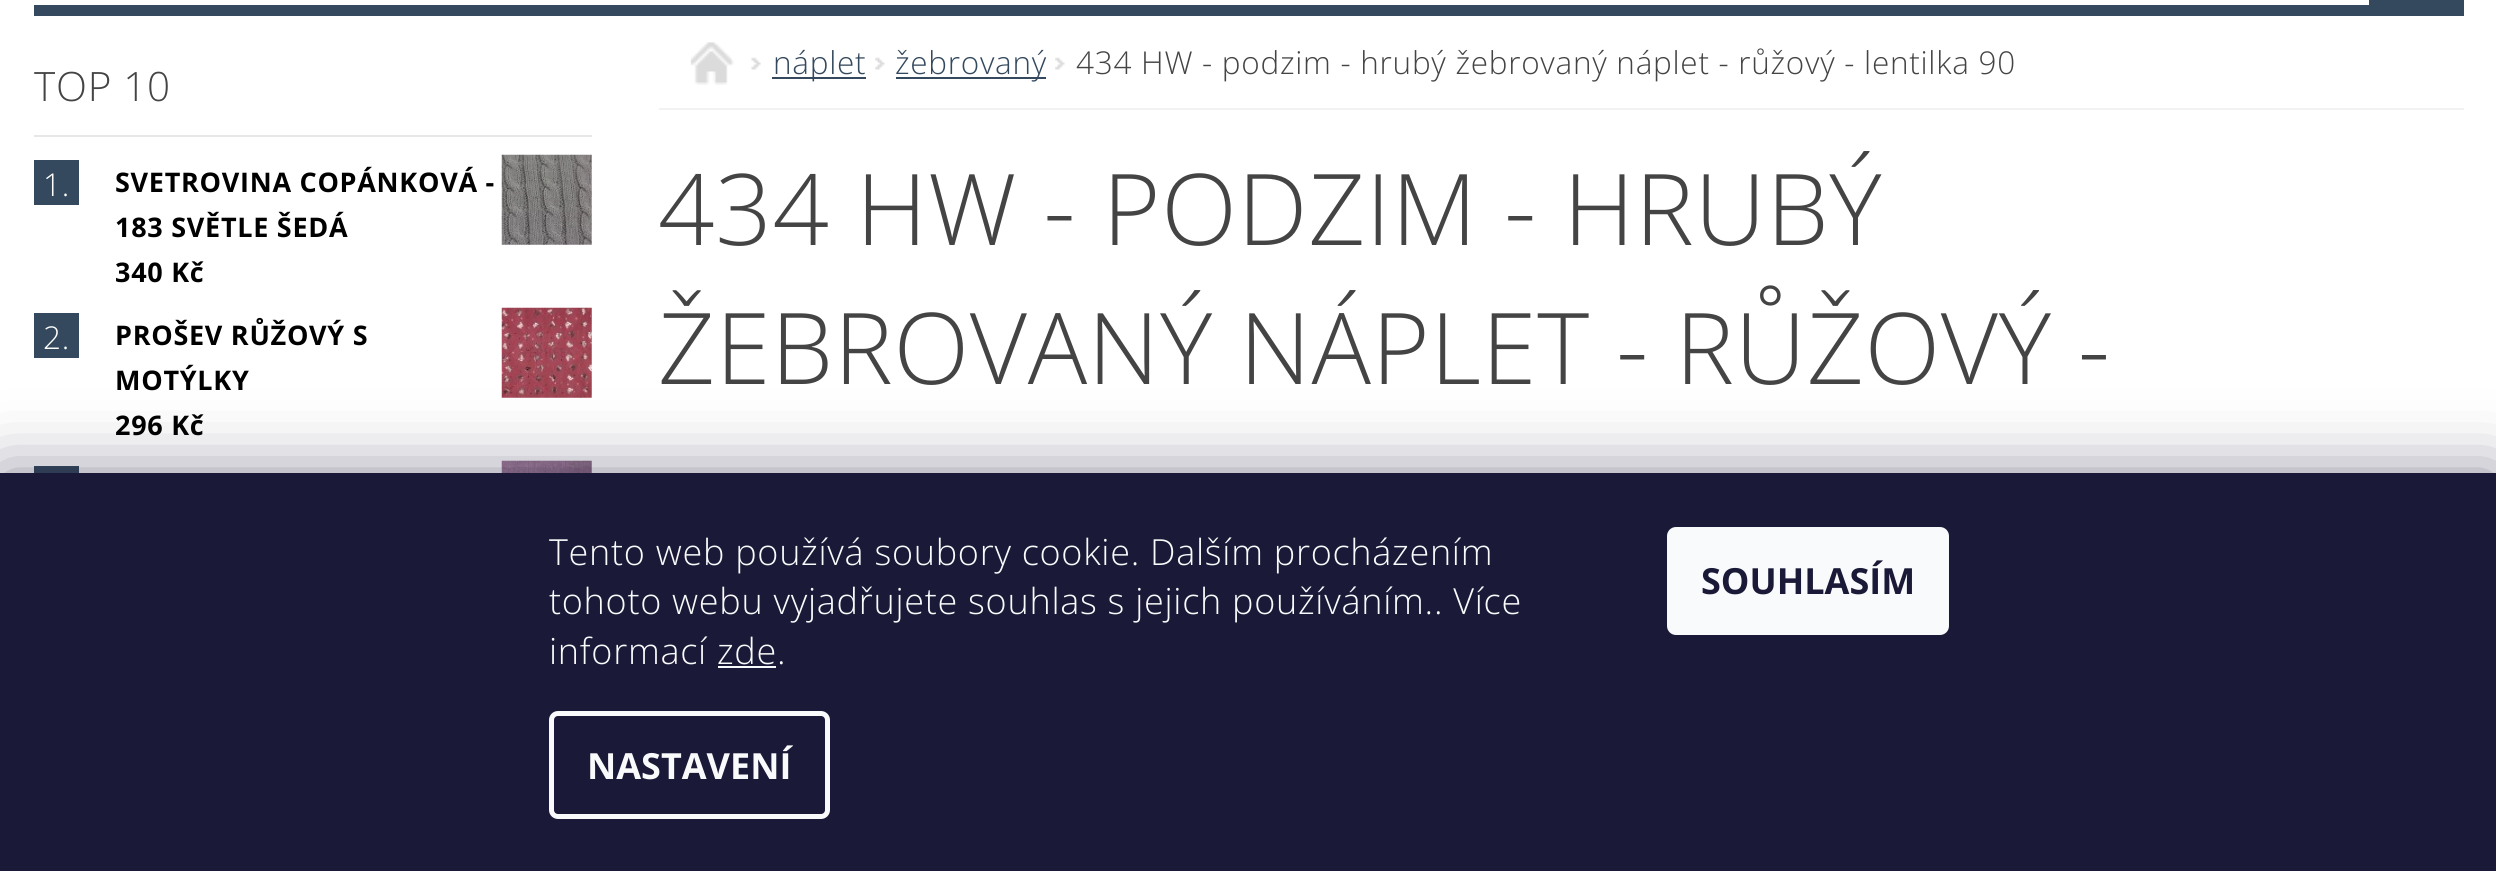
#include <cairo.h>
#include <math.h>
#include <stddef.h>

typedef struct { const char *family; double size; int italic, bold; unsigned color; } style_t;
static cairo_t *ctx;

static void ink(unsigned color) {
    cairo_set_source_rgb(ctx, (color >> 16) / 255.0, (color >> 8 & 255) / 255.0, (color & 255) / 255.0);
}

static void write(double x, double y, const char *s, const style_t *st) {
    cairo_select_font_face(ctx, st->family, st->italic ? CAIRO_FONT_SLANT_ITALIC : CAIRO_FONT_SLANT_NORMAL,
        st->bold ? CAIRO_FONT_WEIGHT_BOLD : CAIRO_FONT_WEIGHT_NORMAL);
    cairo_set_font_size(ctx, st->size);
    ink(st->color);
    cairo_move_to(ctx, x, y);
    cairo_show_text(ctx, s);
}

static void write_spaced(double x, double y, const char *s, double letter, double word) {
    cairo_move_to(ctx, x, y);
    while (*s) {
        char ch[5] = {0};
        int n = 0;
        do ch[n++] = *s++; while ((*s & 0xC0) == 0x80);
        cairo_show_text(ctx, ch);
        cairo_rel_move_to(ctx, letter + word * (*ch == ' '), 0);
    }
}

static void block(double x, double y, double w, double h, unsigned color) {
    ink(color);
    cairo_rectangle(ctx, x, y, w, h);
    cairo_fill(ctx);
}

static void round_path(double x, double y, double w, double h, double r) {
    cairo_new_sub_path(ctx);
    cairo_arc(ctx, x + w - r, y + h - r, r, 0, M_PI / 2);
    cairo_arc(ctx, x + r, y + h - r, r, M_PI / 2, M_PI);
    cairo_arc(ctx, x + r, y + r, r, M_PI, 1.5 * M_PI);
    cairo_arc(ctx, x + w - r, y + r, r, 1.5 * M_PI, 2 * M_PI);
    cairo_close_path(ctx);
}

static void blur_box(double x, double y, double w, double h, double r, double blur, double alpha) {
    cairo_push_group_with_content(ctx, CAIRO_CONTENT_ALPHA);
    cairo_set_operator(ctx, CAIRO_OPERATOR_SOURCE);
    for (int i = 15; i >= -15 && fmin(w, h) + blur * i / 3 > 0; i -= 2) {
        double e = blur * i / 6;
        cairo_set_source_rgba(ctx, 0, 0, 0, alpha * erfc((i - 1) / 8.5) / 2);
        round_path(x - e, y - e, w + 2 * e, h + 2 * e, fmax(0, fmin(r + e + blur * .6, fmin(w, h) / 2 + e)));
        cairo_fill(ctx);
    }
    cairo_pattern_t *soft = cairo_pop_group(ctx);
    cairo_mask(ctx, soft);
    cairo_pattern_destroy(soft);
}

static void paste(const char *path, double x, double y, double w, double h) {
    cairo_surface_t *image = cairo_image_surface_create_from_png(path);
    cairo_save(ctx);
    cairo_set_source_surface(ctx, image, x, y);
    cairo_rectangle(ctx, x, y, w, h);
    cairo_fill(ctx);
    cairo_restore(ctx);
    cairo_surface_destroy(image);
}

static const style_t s1 = {"Open Sans", 36, 0, 1, 0xf8fafb};
static const style_t s2 = {"Open Sans", 36, 0, 1, 0x1a1937};

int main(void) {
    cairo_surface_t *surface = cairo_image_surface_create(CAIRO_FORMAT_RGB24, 2496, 871);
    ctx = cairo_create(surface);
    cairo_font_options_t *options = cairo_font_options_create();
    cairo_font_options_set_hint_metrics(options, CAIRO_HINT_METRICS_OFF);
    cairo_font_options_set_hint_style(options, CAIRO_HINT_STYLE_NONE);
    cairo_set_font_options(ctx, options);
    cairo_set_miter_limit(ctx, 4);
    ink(0xffffff);
    cairo_paint(ctx);
    block(34, 5, 2335, 11, 0x34495e);
    block(2369, 0, 95, 16, 0x34495e);
    block(34, 135, 558, 2, 0xe7e7e7);
    cairo_select_font_face(ctx, "Open Sans Light", CAIRO_FONT_SLANT_NORMAL, CAIRO_FONT_WEIGHT_NORMAL);
    cairo_set_font_size(ctx, 40.5);
    ink(0x444444);
    write_spaced(34, 101, "TOP 10", 0.72, 0);
    block(34, 160, 45, 45, 0x34495e);
    cairo_set_font_size(ctx, 31.5);
    ink(0xffffff);
    write_spaced(43, 196, "1.", 0.72, 0);
    cairo_select_font_face(ctx, "Open Sans", CAIRO_FONT_SLANT_NORMAL, CAIRO_FONT_WEIGHT_BOLD);
    cairo_set_font_size(ctx, 27);
    ink(0x000000);
    write_spaced(115, 192, "SVETROVINA COPÁNKOVÁ -", 0.72, 0);
    write_spaced(115, 237, "183 SVĚTLE ŠEDÁ", 0.72, 0);
    write_spaced(115, 282, "340 Kč", 0.72, 0);
    paste("pic1.png", 501, 154, 91, 91);
    block(34, 313, 45, 45, 0x34495e);
    cairo_select_font_face(ctx, "Open Sans Light", CAIRO_FONT_SLANT_NORMAL, CAIRO_FONT_WEIGHT_NORMAL);
    cairo_set_font_size(ctx, 31.5);
    ink(0xffffff);
    write_spaced(43, 349, "2.", 0.72, 0);
    cairo_select_font_face(ctx, "Open Sans", CAIRO_FONT_SLANT_NORMAL, CAIRO_FONT_WEIGHT_BOLD);
    cairo_set_font_size(ctx, 27);
    ink(0x000000);
    write_spaced(115, 345, "PROŠEV RŮŽOVÝ S", 0.72, 0);
    write_spaced(115, 390, "MOTÝLKY", 0.72, 0);
    write_spaced(115, 435, "296 Kč", 0.72, 0);
    paste("pic2.png", 501, 307, 91, 91);
    block(34, 466, 45, 7, 0x34495e);
    paste("pic3.png", 501, 460, 91, 13);
    block(659, 108, 1805, 2, 0xf2f2f2);
    paste("pic4.png", 690, 42, 44, 43);
    paste("pic5.png", 751, 57, 10, 13);
    block(772, 77, 94, 2, 0x34495e);
    cairo_select_font_face(ctx, "Open Sans Light", CAIRO_FONT_SLANT_NORMAL, CAIRO_FONT_WEIGHT_NORMAL);
    cairo_set_font_size(ctx, 31.5);
    write_spaced(773, 74, "náplet", 0.72, 0);
    paste("pic6.png", 875, 57, 10, 13);
    block(896, 77, 150, 2, 0x34495e);
    write_spaced(895, 74, "žebrovaný", 0.72, 0);
    paste("pic7.png", 1055, 57, 10, 13);
    ink(0x444444);
    write_spaced(1076, 74, "434 HW - podzim - hrubý žebrovaný náplet - růžový - lentilka 90", 0.72, 0);
    cairo_set_font_size(ctx, 99);
    write_spaced(658, 245, "434 HW - PODZIM - HRUBÝ", 0.72, 0);
    write_spaced(658, 384, "ŽEBROVANÝ NÁPLET - RŮŽOVÝ -", 0.72, 0);
    ink(0x1b1939);
    blur_box(0, 473, 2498, 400, 0, 34, 0.5);
    block(0, 473, 2496, 398, 0x1a1937);
    cairo_set_font_size(ctx, 36);
    ink(0xf8fafb);
    write_spaced(549, 565, "Tento web používá soubory cookie. Dalším procházením", 0.72, 0);
    write_spaced(549, 614, "tohoto webu vyjadřujete souhlas s jejich používáním.. Více", 0.72, 0);
    write_spaced(549, 664, "informací zde.", 0.72, 0);
    block(718, 666, 58, 2, 0xf8fafb);
    round_path(551.5, 713.5, 276, 103, 6.5);
    cairo_set_line_width(ctx, 5);
    cairo_stroke(ctx);
    write(587, 779, "NASTAVENÍ", &s1);
    round_path(1667, 527, 282, 108, 9);
    cairo_fill(ctx);
    write(1701, 594, "SOUHLASÍM", &s2);
    cairo_surface_write_to_png(surface, "screenshot.png");
    cairo_font_options_destroy(options);
    cairo_destroy(ctx);
    cairo_surface_destroy(surface);
    return 0;
}
